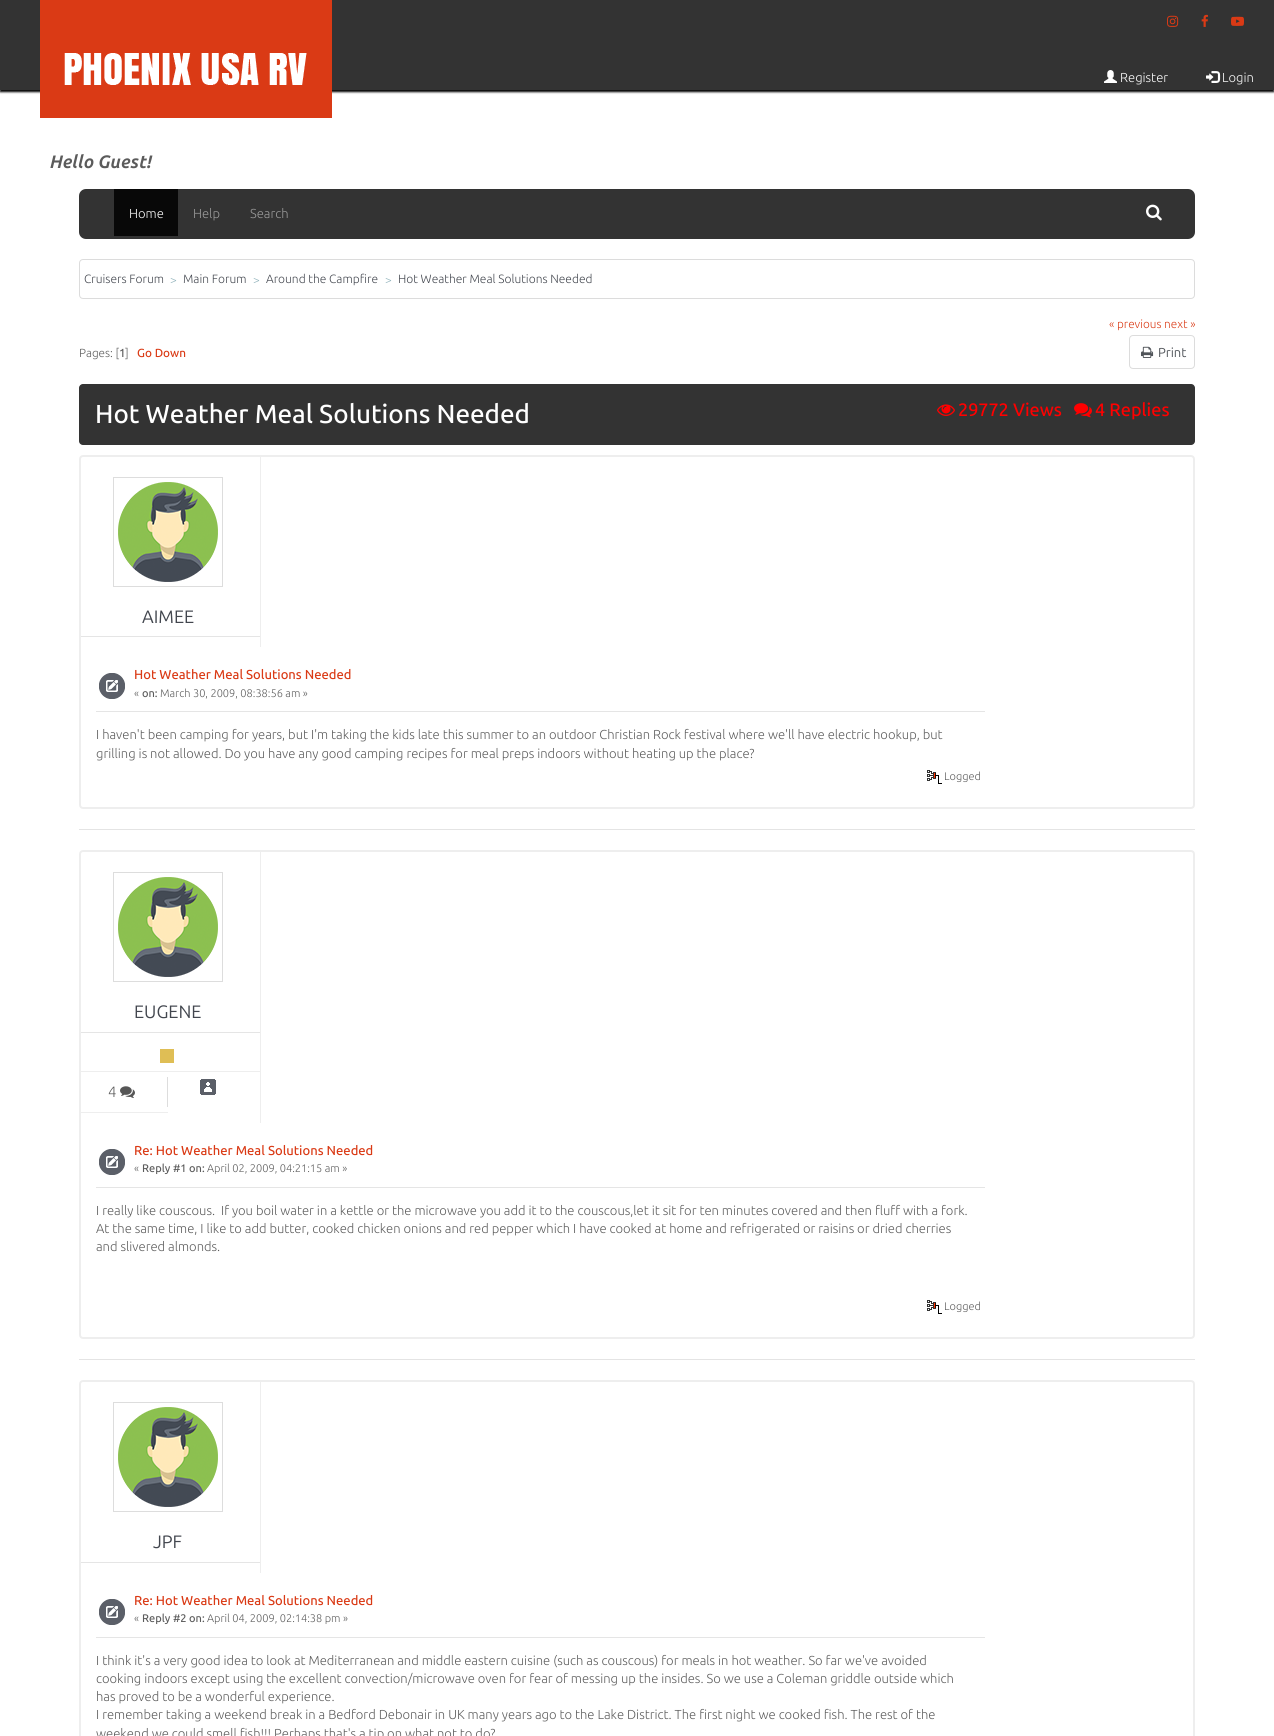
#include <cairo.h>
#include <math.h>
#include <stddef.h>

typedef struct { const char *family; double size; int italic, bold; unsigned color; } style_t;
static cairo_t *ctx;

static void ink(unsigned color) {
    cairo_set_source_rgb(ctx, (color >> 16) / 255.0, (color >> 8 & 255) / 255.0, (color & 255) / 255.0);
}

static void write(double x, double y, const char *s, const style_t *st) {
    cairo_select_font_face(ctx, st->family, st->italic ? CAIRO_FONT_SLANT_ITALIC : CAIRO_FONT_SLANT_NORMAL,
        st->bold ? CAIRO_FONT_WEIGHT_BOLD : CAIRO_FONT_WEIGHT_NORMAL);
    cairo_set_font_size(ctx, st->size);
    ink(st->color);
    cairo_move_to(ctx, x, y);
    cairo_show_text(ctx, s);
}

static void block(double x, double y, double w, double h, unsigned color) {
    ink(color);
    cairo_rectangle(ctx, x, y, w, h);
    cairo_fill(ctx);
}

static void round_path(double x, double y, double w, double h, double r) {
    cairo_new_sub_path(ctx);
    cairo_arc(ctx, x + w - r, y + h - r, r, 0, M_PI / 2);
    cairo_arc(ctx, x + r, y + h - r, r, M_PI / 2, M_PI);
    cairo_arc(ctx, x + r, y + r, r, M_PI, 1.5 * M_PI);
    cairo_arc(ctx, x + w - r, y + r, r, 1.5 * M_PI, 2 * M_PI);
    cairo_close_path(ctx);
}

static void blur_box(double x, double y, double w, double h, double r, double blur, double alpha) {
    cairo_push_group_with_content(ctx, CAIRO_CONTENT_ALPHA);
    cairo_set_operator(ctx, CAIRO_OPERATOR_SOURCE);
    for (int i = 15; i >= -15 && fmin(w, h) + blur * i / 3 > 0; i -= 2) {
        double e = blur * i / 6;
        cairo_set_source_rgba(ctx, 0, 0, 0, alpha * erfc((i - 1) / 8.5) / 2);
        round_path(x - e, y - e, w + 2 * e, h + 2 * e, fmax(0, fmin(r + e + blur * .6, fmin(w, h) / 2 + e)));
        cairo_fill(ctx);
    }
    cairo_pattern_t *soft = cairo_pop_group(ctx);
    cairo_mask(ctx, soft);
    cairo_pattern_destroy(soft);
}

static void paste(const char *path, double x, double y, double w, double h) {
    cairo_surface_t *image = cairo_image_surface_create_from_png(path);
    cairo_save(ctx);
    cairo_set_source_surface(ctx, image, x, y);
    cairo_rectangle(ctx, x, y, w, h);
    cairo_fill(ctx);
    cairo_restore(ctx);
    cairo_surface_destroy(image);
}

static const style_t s1 = {"Ubuntu Light", 13, 0, 0, 0xffffff};
static const style_t s2 = {"Ubuntu", 18, 1, 1, 0x5b5b5b};
static const style_t s3 = {"Ubuntu Light", 13, 0, 0, 0x9d9d9d};
static const style_t s4 = {"Ubuntu Light", 12, 0, 0, 0x42464e};
static const style_t s5 = {"Ubuntu Light", 12, 0, 0, 0x91b3bb};
static const style_t s6 = {"Ubuntu Light", 11.75, 0, 0, 0xda3a15};
static const style_t s7 = {"Ubuntu Light", 11.75, 0, 0, 0x5b5b5b};
static const style_t s8 = {"Ubuntu Medium", 11.75, 0, 0, 0x5b5b5b};
static const style_t s9 = {"Ubuntu Medium", 11.75, 0, 0, 0xda3a15};
static const style_t s10 = {"Ubuntu", 13, 0, 0, 0x505459};
static const style_t s11 = {"Ubuntu Medium", 26, 0, 0, 0xffffff};
static const style_t s12 = {"Ubuntu Medium", 18, 0, 0, 0xff0000};
static const style_t s13 = {"Ubuntu", 18, 0, 0, 0x42464e};
static const style_t s14 = {"Ubuntu Medium", 13, 0, 0, 0xda3a15};
static const style_t s15 = {"Ubuntu Light", 11, 0, 0, 0x5b5b5b};
static const style_t s16 = {"Ubuntu Medium", 11, 0, 0, 0x5b5b5b};
static const style_t s17 = {"Ubuntu Light", 13, 0, 0, 0x5b5b5b};
static const style_t s18 = {"Ubuntu Light", 15, 0, 0, 0x5b5b5b};

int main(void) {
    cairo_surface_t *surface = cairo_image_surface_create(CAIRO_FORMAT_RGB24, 1274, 1736);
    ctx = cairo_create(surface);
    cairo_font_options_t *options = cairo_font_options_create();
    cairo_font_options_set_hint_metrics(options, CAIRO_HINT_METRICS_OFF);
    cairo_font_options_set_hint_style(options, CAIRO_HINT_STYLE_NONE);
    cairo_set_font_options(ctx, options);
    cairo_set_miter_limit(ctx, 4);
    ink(0xffffff);
    cairo_paint(ctx);
    ink(0x000000);
    blur_box(0, 2, 1274, 90, 0, 1, 1);
    block(0, 0, 1274, 90, 0x333333);
    paste("pic1.png", 40, 0, 292, 118);
    paste("pic2.png", 1167, 15, 12, 12);
    paste("pic3.png", 1201, 14, 7, 13);
    paste("pic4.png", 1231, 16, 13, 10);
    paste("pic5.png", 1104, 70, 13, 13);
    write(1120, 82, "Register", &s1);
    paste("pic6.png", 1206, 71, 15, 12);
    write(1222, 82, "Login", &s1);
    write(50, 168, "Hello Guest!", &s2);
    ink(0x333333);
    round_path(79, 189, 1116, 50, 7);
    cairo_fill(ctx);
    block(114, 189, 64, 47, 0x080808);
    write(129, 218, "Home", &s1);
    write(193, 218, "Help", &s3);
    write(250, 218, "Search", &s3);
    paste("pic7.png", 1146, 204, 16, 17);
    round_path(79.5, 259.5, 1115, 39, 3.5);
    ink(0xdcdcdc);
    cairo_set_line_width(ctx, 1);
    cairo_stroke(ctx);
    write(84, 283, "Cruisers Forum", &s4);
    write(170, 284, ">", &s5);
    write(183, 283, "Main Forum", &s4);
    write(253, 284, ">", &s5);
    write(266, 283, "Around the Campfire", &s4);
    write(385, 284, ">", &s5);
    write(398, 283, "Hot Weather Meal Solutions Needed", &s4);
    write(1109, 328, "« previous next »", &s6);
    write(79, 357, "Pages: [", &s7);
    write(119, 357, "1", &s8);
    write(125, 357, "]", &s7);
    write(137, 357, "Go Down", &s9);
    round_path(1129.5, 335.5, 65, 33, 3.5);
    ink(0xdcdcdc);
    cairo_stroke(ctx);
    paste("pic8.png", 1141, 346, 13, 12);
    write(1158, 357, "Print", &s10);
    ink(0x333333);
    round_path(79, 384, 1116, 61, 4);
    cairo_fill(ctx);
    write(95, 423, "Hot Weather Meal Solutions Needed", &s11);
    paste("pic9.png", 937, 404, 18, 12);
    write(958, 416, "29772 Views", &s12);
    paste("pic10.png", 1074, 403, 18, 15);
    write(1095, 416, "4 Replies", &s12);
    round_path(80, 456, 1114, 352, 3);
    ink(0xeeeeee);
    cairo_set_line_width(ctx, 2);
    cairo_stroke(ctx);
    block(260, 457, 1, 190, 0xeeeeee);
    cairo_rectangle(ctx, 113.5, 477.5, 109, 109);
    ink(0xdddddd);
    cairo_set_line_width(ctx, 1);
    cairo_stroke(ctx);
    paste("pic11.png", 118, 482, 100, 100);
    block(81, 636, 179, 1, 0xe5e5e5);
    write(142, 623, "AIMEE", &s13);
    paste("pic12.png", 99, 673, 26, 26);
    write(134, 679, "Hot Weather Meal Solutions Needed", &s14);
    write(134, 697, "«", &s15);
    write(142, 697, "on:", &s16);
    write(160, 697, "March 30, 2009, 08:38:56 am »", &s15);
    block(96, 711, 889, 1, 0xe5e5e5);
    write(96, 739, "I haven't been camping for years, but I'm taking the kids late this summer to an outdoor Christian Rock festival where we'll have electric hookup, but", &s17);
    write(96, 758, "grilling is not allowed. Do you have any good camping recipes for meal preps indoors without heating up the place?", &s17);
    paste("pic13.png", 927, 770, 15, 14);
    write(944, 780, "Logged", &s15);
    block(79, 829, 1116, 1, 0xe4e4e4);
    round_path(80, 851, 1114, 487, 3);
    ink(0xeeeeee);
    cairo_set_line_width(ctx, 2);
    cairo_stroke(ctx);
    block(260, 852, 1, 271, 0xeeeeee);
    cairo_rectangle(ctx, 113.5, 872.5, 109, 109);
    ink(0xdddddd);
    cairo_set_line_width(ctx, 1);
    cairo_stroke(ctx);
    paste("pic11.png", 118, 877, 100, 100);
    block(81, 1032, 179, 1, 0xe5e5e5);
    write(134, 1018, "EUGENE", &s13);
    block(81, 1071, 179, 1, 0xeeeeee);
    block(160, 1049, 14, 14, 0xdfbe55);
    block(81, 1112, 87, 1, 0xeeeeee);
    block(167, 1077, 1, 30, 0xdddddd);
    write(108, 1097, "4", &s18);
    paste("pic14.png", 120, 1086, 15, 12);
    paste("pic15.png", 200, 1079, 16, 16);
    paste("pic12.png", 99, 1149, 26, 26);
    write(134, 1155, "Re: Hot Weather Meal Solutions Needed", &s14);
    write(134, 1172, "«", &s15);
    write(142, 1172, "Reply #1 on:", &s16);
    write(207, 1172, "April 02, 2009, 04:21:15 am »", &s15);
    block(96, 1187, 889, 1, 0xe5e5e5);
    write(96, 1215, "I really like couscous.  If you boil water in a kettle or the microwave you add it to the couscous,let it sit for ten minutes covered and then fluff with a fork.", &s17);
    write(96, 1233, "At the same time, I like to add butter, cooked chicken onions and red pepper which I have cooked at home and refrigerated or raisins or dried cherries", &s17);
    write(96, 1251, "and slivered almonds.", &s17);
    paste("pic13.png", 927, 1300, 15, 14);
    write(944, 1310, "Logged", &s15);
    block(79, 1359, 1116, 1, 0xe4e4e4);
    round_path(80, 1381, 1114, 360, 3);
    ink(0xeeeeee);
    cairo_set_line_width(ctx, 2);
    cairo_stroke(ctx);
    block(260, 1382, 1, 191, 0xeeeeee);
    cairo_rectangle(ctx, 113.5, 1402.5, 109, 109);
    ink(0xdddddd);
    cairo_set_line_width(ctx, 1);
    cairo_stroke(ctx);
    paste("pic11.png", 118, 1407, 100, 100);
    block(81, 1562, 179, 1, 0xe5e5e5);
    write(153, 1548, "JPF", &s13);
    paste("pic12.png", 99, 1599, 26, 26);
    write(134, 1605, "Re: Hot Weather Meal Solutions Needed", &s14);
    write(134, 1622, "«", &s15);
    write(142, 1622, "Reply #2 on:", &s16);
    write(207, 1622, "April 04, 2009, 02:14:38 pm »", &s15);
    block(96, 1637, 889, 1, 0xe5e5e5);
    write(96, 1665, "I think it's a very good idea to look at Mediterranean and middle eastern cuisine (such as couscous) for meals in hot weather. So far we've avoided", &s17);
    write(96, 1683, "cooking indoors except using the excellent convection/microwave oven for fear of messing up the insides. So we use a Coleman griddle outside which", &s17);
    write(96, 1701, "has proved to be a wonderful experience.", &s17);
    write(96, 1719, "I remember taking a weekend break in a Bedford Debonair in UK many years ago to the Lake District. The first night we cooked fish. The rest of the", &s17);
    write(96, 1738, "weekend we could smell fish!!! Perhaps that's a tip on what not to do?", &s17);
    cairo_surface_write_to_png(surface, "screenshot.png");
    cairo_font_options_destroy(options);
    cairo_destroy(ctx);
    cairo_surface_destroy(surface);
    return 0;
}
